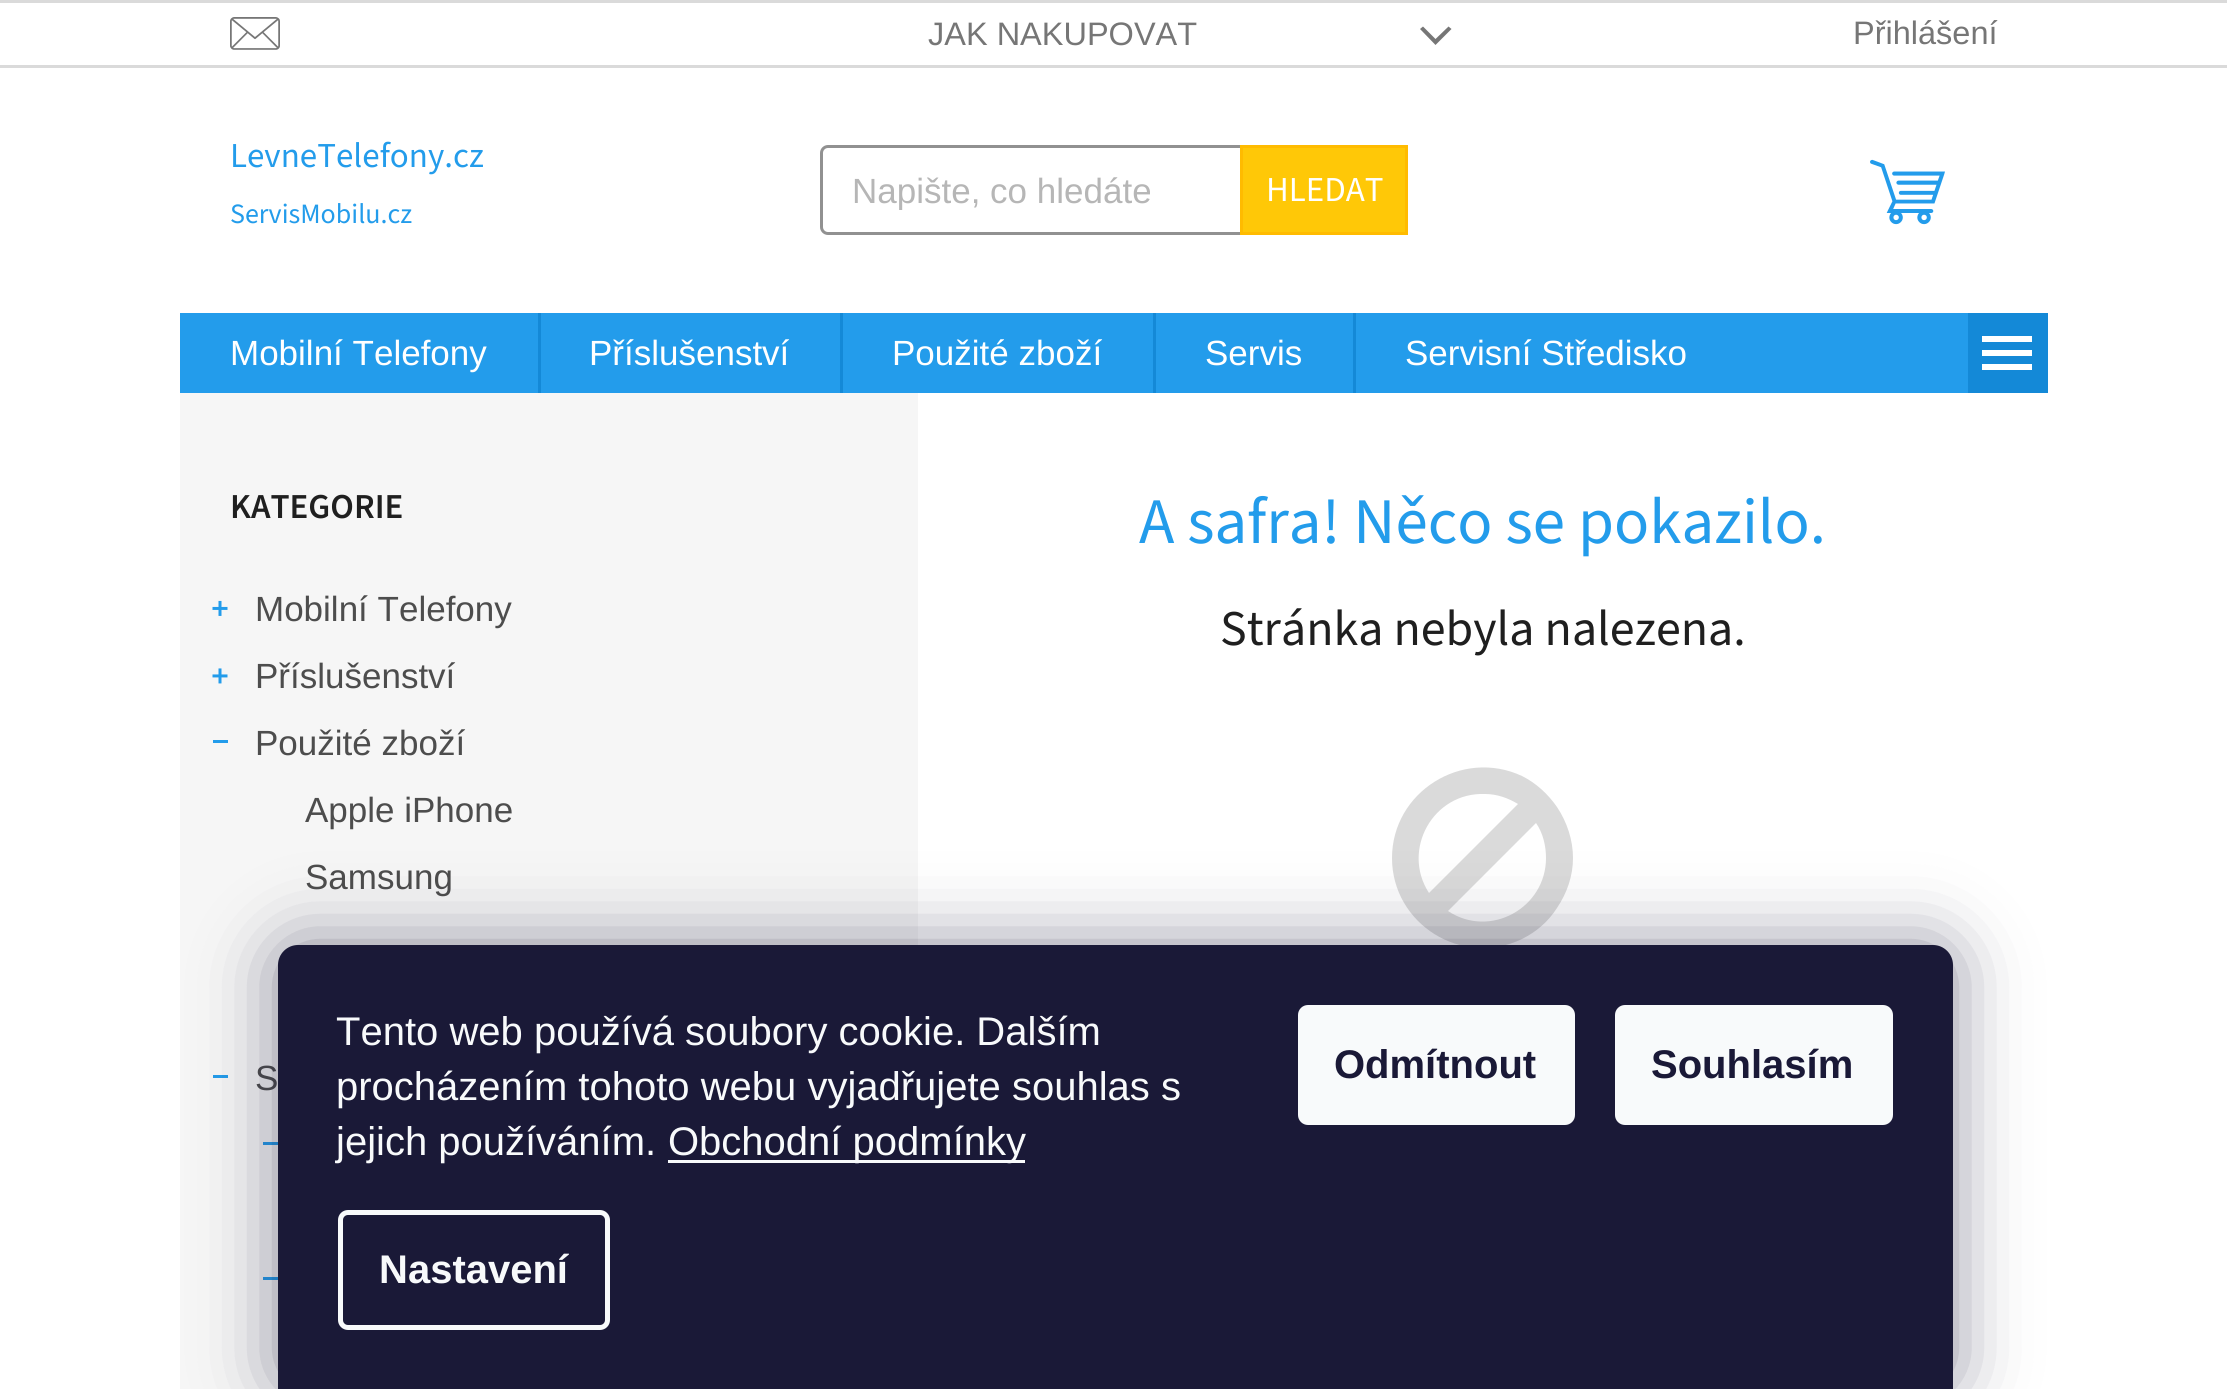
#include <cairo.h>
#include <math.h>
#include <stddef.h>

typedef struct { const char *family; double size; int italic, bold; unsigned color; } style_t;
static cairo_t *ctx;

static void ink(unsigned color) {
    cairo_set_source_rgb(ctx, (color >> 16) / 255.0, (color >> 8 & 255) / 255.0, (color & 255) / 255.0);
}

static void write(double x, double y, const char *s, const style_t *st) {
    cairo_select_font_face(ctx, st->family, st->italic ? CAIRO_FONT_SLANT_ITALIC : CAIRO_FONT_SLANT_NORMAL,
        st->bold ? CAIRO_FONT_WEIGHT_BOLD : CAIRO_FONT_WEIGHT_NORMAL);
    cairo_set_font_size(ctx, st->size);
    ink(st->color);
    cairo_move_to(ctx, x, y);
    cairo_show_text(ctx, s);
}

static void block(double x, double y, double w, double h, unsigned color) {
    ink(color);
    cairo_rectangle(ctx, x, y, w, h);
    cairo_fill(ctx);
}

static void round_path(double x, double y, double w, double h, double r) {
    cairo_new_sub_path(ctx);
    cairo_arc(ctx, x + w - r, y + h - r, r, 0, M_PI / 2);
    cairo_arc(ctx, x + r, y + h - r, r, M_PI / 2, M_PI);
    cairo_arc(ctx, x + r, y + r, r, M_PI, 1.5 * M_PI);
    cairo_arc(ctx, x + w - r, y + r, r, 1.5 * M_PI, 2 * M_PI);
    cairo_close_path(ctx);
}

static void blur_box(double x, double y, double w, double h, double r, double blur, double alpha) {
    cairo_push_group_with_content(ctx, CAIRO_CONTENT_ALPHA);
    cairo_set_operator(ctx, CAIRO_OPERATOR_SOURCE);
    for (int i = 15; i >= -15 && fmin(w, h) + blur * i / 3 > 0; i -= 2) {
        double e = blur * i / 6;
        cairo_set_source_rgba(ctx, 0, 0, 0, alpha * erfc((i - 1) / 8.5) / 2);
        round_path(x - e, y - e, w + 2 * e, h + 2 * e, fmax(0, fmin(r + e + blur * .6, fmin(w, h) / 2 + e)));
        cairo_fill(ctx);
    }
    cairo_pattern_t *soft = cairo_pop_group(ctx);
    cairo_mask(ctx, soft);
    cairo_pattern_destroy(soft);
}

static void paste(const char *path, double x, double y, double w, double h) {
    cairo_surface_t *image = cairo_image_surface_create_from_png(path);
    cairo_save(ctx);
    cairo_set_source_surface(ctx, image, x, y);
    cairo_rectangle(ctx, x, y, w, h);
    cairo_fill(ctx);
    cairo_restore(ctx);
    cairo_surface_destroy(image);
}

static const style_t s1 = {"Liberation Sans", 32.5, 0, 0, 0x767676};
static const style_t s2 = {"Source Sans 3", 35, 0, 0, 0x239ceb};
static const style_t s3 = {"Source Sans 3", 28, 0, 0, 0x239ceb};
static const style_t s4 = {"Liberation Sans", 35, 0, 0, 0xb6b6b6};
static const style_t s5 = {"Source Sans 3", 35, 0, 0, 0xffffff};
static const style_t s6 = {"Liberation Sans", 35, 0, 0, 0xffffff};
static const style_t s7 = {"Source Sans 3 SemiBold", 35, 0, 0, 0x1f1f1f};
static const style_t s8 = {"Liberation Sans", 35, 0, 0, 0x4d4d4d};
static const style_t s9 = {"Source Sans 3", 65, 0, 0, 0x239ceb};
static const style_t s10 = {"Source Sans 3", 50, 0, 0, 0x1f1f1f};
static const style_t s11 = {"Liberation Sans", 40, 0, 0, 0xf8fafb};
static const style_t s12 = {"Liberation Sans", 40, 0, 1, 0xf8fafb};
static const style_t s13 = {"Liberation Sans", 40, 0, 1, 0x1a1937};

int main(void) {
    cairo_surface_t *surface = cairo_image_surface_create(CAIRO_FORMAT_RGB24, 2227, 1389);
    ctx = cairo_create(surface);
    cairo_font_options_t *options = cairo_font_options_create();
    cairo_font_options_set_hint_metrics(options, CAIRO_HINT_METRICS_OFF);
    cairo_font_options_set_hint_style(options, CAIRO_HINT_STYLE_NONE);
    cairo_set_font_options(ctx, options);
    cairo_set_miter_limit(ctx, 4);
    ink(0xffffff);
    cairo_paint(ctx);
    block(0, 0, 2227, 3, 0xdadada);
    block(0, 65, 2227, 3, 0xdadada);
    paste("pic1.png", 230, 17, 50, 33);
    write(928, 45, "JAK NAKUPOVAT", &s1);
    cairo_new_path(ctx);
    cairo_move_to(ctx, 1420, 29);
    cairo_line_to(ctx, 1423, 26.5);
    cairo_line_to(ctx, 1435.5, 39);
    cairo_line_to(ctx, 1448.5, 26.5);
    cairo_line_to(ctx, 1451.5, 29);
    cairo_line_to(ctx, 1435.5, 45);
    cairo_close_path(ctx);
    cairo_fill(ctx);
    write(1853, 44, "Přihlášení", &s1);
    write(230, 167, "LevneTelefony.cz", &s2);
    write(230, 223, "ServisMobilu.cz", &s3);
    round_path(821.5, 146.5, 585, 87, 6.5);
    ink(0x919191);
    cairo_set_line_width(ctx, 3);
    cairo_stroke(ctx);
    cairo_save(ctx);
    cairo_rectangle(ctx, 853, 170, 367, 40);
    cairo_clip(ctx);
    write(852, 203, "Napište, co hledáte", &s4);
    cairo_restore(ctx);
    ink(0xffc807);
    cairo_rectangle(ctx, 1241.5, 146.5, 165, 87);
    cairo_fill_preserve(ctx);
    ink(0xffbb00);
    cairo_stroke(ctx);
    write(1266, 201, "HLEDAT", &s5);
    paste("pic2.png", 1870, 159, 75, 66);
    block(180, 313, 1788, 80, 0x239ceb);
    write(230, 365, "Mobilní Telefony", &s6);
    block(538, 313, 3, 80, 0x1489d7);
    write(589, 365, "Příslušenství", &s6);
    block(840, 313, 3, 80, 0x1489d7);
    write(892, 365, "Použité zboží", &s6);
    block(1153, 313, 3, 80, 0x1489d7);
    write(1205, 365, "Servis", &s6);
    block(1353, 313, 3, 80, 0x1489d7);
    write(1405, 365, "Servisní Středisko", &s6);
    block(1968, 313, 80, 80, 0x1489d7);
    ink(0xffffff);
    cairo_new_path(ctx);
    cairo_move_to(ctx, 1982, 370);
    cairo_line_to(ctx, 2032, 370);
    cairo_line_to(ctx, 2032, 364);
    cairo_line_to(ctx, 1982, 364);
    cairo_close_path(ctx);
    cairo_move_to(ctx, 1982, 356);
    cairo_line_to(ctx, 2032, 356);
    cairo_line_to(ctx, 2032, 350);
    cairo_line_to(ctx, 1982, 350);
    cairo_close_path(ctx);
    cairo_move_to(ctx, 1982, 336);
    cairo_line_to(ctx, 1982, 342);
    cairo_line_to(ctx, 2032, 342);
    cairo_line_to(ctx, 2032, 336);
    cairo_close_path(ctx);
    cairo_fill(ctx);
    block(180, 393, 738, 996, 0xf6f6f6);
    write(230, 518, "KATEGORIE", &s7);
    paste("pic3.png", 212, 600, 16, 16);
    write(255, 621, "Mobilní Telefony", &s8);
    paste("pic4.png", 212, 668, 16, 16);
    write(255, 688, "Příslušenství", &s8);
    block(213, 740, 15, 3, 0x239ceb);
    write(255, 755, "Použité zboží", &s8);
    write(305, 822, "Apple iPhone", &s8);
    write(305, 889, "Samsung", &s8);
    block(213, 1075, 15, 3, 0x239ceb);
    write(255, 1090, "S", &s8);
    block(263, 1142, 15, 3, 0x239ceb);
    block(263, 1277, 15, 3, 0x239ceb);
    write(1139, 543, "A safra! Něco se pokazilo.", &s9);
    write(1220, 645, "Stránka nebyla nalezena.", &s10);
    ink(0xdadada);
    cairo_new_path(ctx);
    cairo_move_to(ctx, 1546, 858);
    cairo_curve_to(ctx, 1546, 846, 1543, 833, 1536, 823);
    cairo_line_to(ctx, 1448, 911);
    cairo_curve_to(ctx, 1490, 939, 1546, 908, 1546, 858);
    cairo_close_path(ctx);
    cairo_move_to(ctx, 1429, 893);
    cairo_line_to(ctx, 1518, 804);
    cairo_curve_to(ctx, 1508, 798, 1497, 794, 1485, 794);
    cairo_curve_to(ctx, 1433, 792, 1401, 850, 1429, 893);
    cairo_close_path(ctx);
    cairo_move_to(ctx, 1573, 858);
    cairo_curve_to(ctx, 1573, 876, 1567, 893, 1557, 908);
    cairo_curve_to(ctx, 1548, 922, 1536, 932, 1522, 939);
    cairo_curve_to(ctx, 1462, 968, 1392, 924, 1392, 858);
    cairo_curve_to(ctx, 1392, 792, 1462, 748, 1522, 776);
    cairo_curve_to(ctx, 1536, 783, 1548, 794, 1557, 807);
    cairo_curve_to(ctx, 1567, 822, 1573, 840, 1573, 858);
    cairo_close_path(ctx);
    cairo_fill(ctx);
    ink(0x1b1939);
    blur_box(278, 945, 1675, 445, 20, 37.5, 0.5);
    ink(0x1a1937);
    cairo_new_path(ctx);
    cairo_move_to(ctx, 298, 945);
    cairo_line_to(ctx, 1933, 945);
    cairo_curve_to(ctx, 1944, 945, 1953, 954, 1953, 965);
    cairo_line_to(ctx, 1953, 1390);
    cairo_line_to(ctx, 278, 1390);
    cairo_line_to(ctx, 278, 965);
    cairo_curve_to(ctx, 278, 954, 287, 945, 298, 945);
    cairo_close_path(ctx);
    cairo_fill(ctx);
    write(336, 1045, "Tento web používá soubory cookie. Dalším", &s11);
    write(336, 1100, "procházením tohoto webu vyjadřujete souhlas s", &s11);
    write(336, 1155, "jejich používáním.", &s11);
    block(668, 1160, 357, 3, 0xf8fafb);
    write(668, 1155, "Obchodní podmínky", &s11);
    round_path(340.5, 1212.5, 267, 115, 7.5);
    cairo_set_line_width(ctx, 5);
    cairo_stroke(ctx);
    write(379, 1283, "Nastavení", &s12);
    round_path(1298, 1005, 277, 120, 10);
    cairo_fill(ctx);
    write(1334, 1078, "Odmítnout", &s13);
    ink(0xf8fafb);
    round_path(1615, 1005, 278, 120, 10);
    cairo_fill(ctx);
    write(1651, 1078, "Souhlasím", &s13);
    cairo_surface_write_to_png(surface, "screenshot.png");
    cairo_font_options_destroy(options);
    cairo_destroy(ctx);
    cairo_surface_destroy(surface);
    return 0;
}
